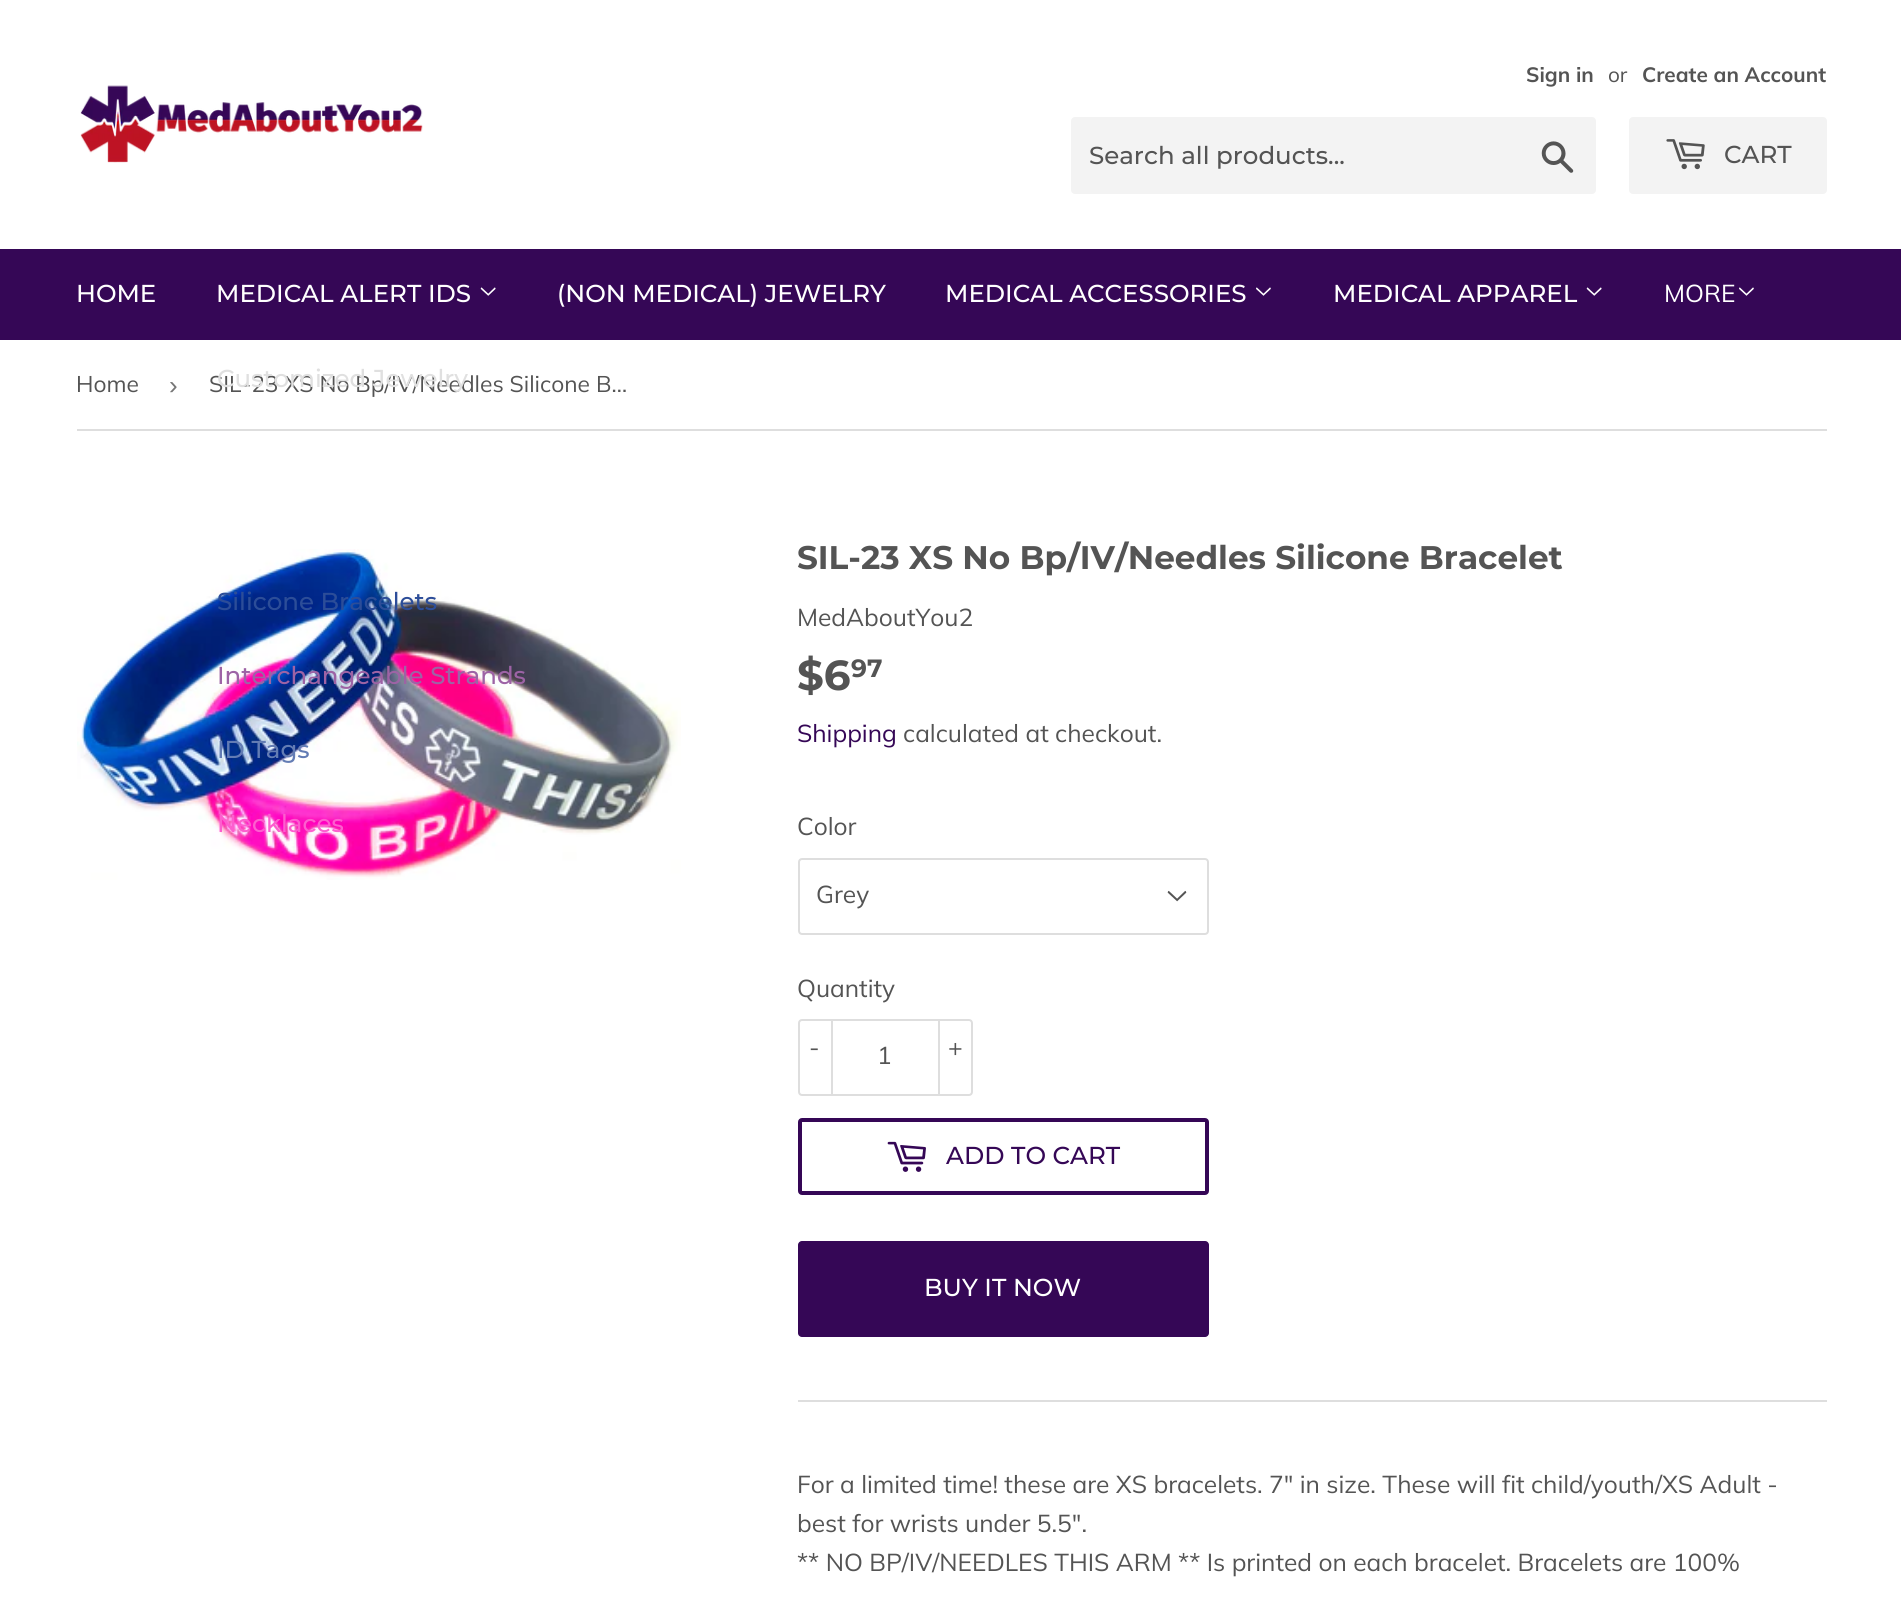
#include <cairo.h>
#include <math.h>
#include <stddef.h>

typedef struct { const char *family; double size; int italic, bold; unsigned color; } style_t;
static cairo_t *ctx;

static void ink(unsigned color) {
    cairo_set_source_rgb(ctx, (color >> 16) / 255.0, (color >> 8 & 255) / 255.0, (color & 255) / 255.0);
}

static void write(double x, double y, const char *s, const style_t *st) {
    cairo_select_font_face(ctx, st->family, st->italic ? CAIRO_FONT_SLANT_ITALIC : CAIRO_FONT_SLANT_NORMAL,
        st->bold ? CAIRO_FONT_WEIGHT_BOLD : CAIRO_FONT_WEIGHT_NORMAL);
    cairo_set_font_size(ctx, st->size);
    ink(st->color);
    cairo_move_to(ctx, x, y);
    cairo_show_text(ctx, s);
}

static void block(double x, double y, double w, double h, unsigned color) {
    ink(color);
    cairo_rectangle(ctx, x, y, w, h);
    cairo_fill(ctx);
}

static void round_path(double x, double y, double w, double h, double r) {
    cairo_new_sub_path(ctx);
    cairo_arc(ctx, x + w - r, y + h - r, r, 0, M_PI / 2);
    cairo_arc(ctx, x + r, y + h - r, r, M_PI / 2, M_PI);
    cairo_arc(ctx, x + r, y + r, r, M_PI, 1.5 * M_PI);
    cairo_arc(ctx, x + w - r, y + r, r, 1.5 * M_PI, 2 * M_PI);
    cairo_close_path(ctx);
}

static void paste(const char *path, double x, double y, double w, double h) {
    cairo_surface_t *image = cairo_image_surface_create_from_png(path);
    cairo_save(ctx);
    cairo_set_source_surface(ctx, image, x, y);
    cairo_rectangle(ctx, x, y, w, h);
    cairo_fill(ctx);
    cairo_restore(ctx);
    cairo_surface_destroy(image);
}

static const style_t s1 = {"Muli", 20.75, 0, 1, 0x545454};
static const style_t s2 = {"Muli", 20.75, 0, 0, 0x545454};
static const style_t s3 = {"Montserrat Medium", 24.5, 0, 0, 0x545454};
static const style_t s4 = {"Montserrat Medium", 24.5, 0, 0, 0xffffff};
static const style_t s5 = {"Muli", 22.75, 0, 0, 0x545454};
static const style_t s6 = {"Montserrat Medium", 24.5, 0, 0, 0xe0e0e0};
static const style_t s7 = {"Montserrat Medium", 24.5, 0, 0, 0x2c4d98};
static const style_t s8 = {"Montserrat Medium", 24.5, 0, 0, 0x9d63a5};
static const style_t s9 = {"Montserrat Medium", 24.5, 0, 0, 0x637cb4};
static const style_t s10 = {"Montserrat Medium", 24.5, 0, 0, 0xfd5ecf};
static const style_t s11 = {"Muli", 24.5, 0, 0, 0xffffff};
static const style_t s12 = {"Liberation Sans", 26, 0, 0, 0x767676};
static const style_t s13 = {"Montserrat", 32.7, 0, 1, 0x545454};
static const style_t s14 = {"Muli", 24.5, 0, 0, 0x545454};
static const style_t s15 = {"Montserrat", 42, 0, 1, 0x545454};
static const style_t s16 = {"Montserrat", 25, 0, 1, 0x545454};
static const style_t s17 = {"Muli", 24.5, 0, 0, 0x350756};
static const style_t s18 = {"Montserrat Medium", 24.5, 0, 0, 0x350756};

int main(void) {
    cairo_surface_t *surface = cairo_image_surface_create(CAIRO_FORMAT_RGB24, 1901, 1602);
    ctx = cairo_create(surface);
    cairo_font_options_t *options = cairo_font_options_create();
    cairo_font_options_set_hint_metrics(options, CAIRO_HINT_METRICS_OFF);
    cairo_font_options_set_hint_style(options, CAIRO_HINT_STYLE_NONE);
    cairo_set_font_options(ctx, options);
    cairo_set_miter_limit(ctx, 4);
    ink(0xffffff);
    cairo_paint(ctx);
    paste("pic1.png", 80, 85, 343, 78);
    write(1526, 82, "Sign in", &s1);
    write(1608, 82, "or", &s2);
    write(1642, 82, "Create an Account", &s1);
    ink(0xf3f3f3);
    round_path(1071, 117, 525, 77, 4);
    cairo_fill(ctx);
    write(1089, 164, "Search all products...", &s3);
    paste("pic2.png", 1541, 141, 33, 32);
    ink(0xf3f3f3);
    round_path(1629, 117, 198, 77, 4);
    cairo_fill(ctx);
    paste("pic3.png", 1666, 139, 39, 31);
    write(1724, 163, "CART", &s3);
    block(0, 249, 1901, 91, 0x350756);
    write(76, 302, "HOME", &s4);
    write(216, 302, "MEDICAL ALERT IDS", &s4);
    paste("pic4.png", 480, 287, 16, 9);
    write(209, 392, "SIL-23 XS No Bp/IV/Needles Silicone B…", &s5);
    write(217, 387, "Customized Jewelry", &s6);
    paste("pic6.png", 77, 549, 604, 331);
    write(217, 610, "Silicone Bracelets", &s7);
    write(217, 684, "Interchangeable Strands", &s8);
    write(217, 758, "ID Tags", &s9);
    write(217, 832, "Necklaces", &s10);
    write(557, 302, "(NON MEDICAL) JEWELRY", &s4);
    write(945, 302, "MEDICAL ACCESSORIES", &s4);
    paste("pic5.png", 1256, 287, 15, 9);
    write(1333, 302, "MEDICAL APPAREL", &s4);
    paste("pic4.png", 1586, 287, 16, 9);
    write(1664, 302, "MORE", &s11);
    paste("pic5.png", 1739, 287, 15, 9);
    block(77, 429, 1750, 2, 0xdedede);
    write(76, 392, "Home", &s5);
    write(169, 394, "›", &s12);
    write(797, 569, "SIL-23 XS No Bp/IV/Needles Silicone Bracelet", &s13);
    write(797, 626, "MedAboutYou2", &s14);
    write(797, 690, "$6", &s15);
    write(851, 677, "97", &s16);
    write(797, 742, "Shipping", &s17);
    write(903, 742, "calculated at checkout.", &s14);
    write(797, 835, "Color", &s14);
    paste("pic7.png", 1167, 890, 20, 12);
    round_path(799, 859, 409, 75, 3);
    ink(0xdedede);
    cairo_stroke(ctx);
    write(816, 903, "Grey", &s14);
    write(797, 997, "Quantity", &s14);
    round_path(799, 1020, 173, 75, 3);
    ink(0xdedede);
    cairo_stroke(ctx);
    block(831, 1019, 2, 77, 0xdedede);
    write(809, 1056, "-", &s14);
    write(877, 1064, "1", &s14);
    block(938, 1019, 2, 77, 0xdedede);
    write(948, 1056, "+", &s14);
    round_path(800, 1120, 407, 73, 2);
    ink(0x350756);
    cairo_set_line_width(ctx, 4);
    cairo_stroke(ctx);
    paste("pic8.png", 887, 1141, 39, 31);
    write(946, 1164, "ADD TO CART", &s18);
    round_path(798, 1241, 411, 96, 4);
    cairo_fill(ctx);
    write(924, 1296, "BUY IT NOW", &s4);
    block(798, 1400, 1029, 2, 0xdedede);
    write(797, 1493, "For a limited time! these are XS bracelets. 7\" in size. These will fit child/youth/XS Adult -", &s14);
    write(797, 1532, "best for wrists under 5.5\".", &s14);
    write(797, 1571, "** NO BP/IV/NEEDLES THIS ARM ** Is printed on each bracelet. Bracelets are 100%", &s14);
    cairo_surface_write_to_png(surface, "screenshot.png");
    cairo_font_options_destroy(options);
    cairo_destroy(ctx);
    cairo_surface_destroy(surface);
    return 0;
}
